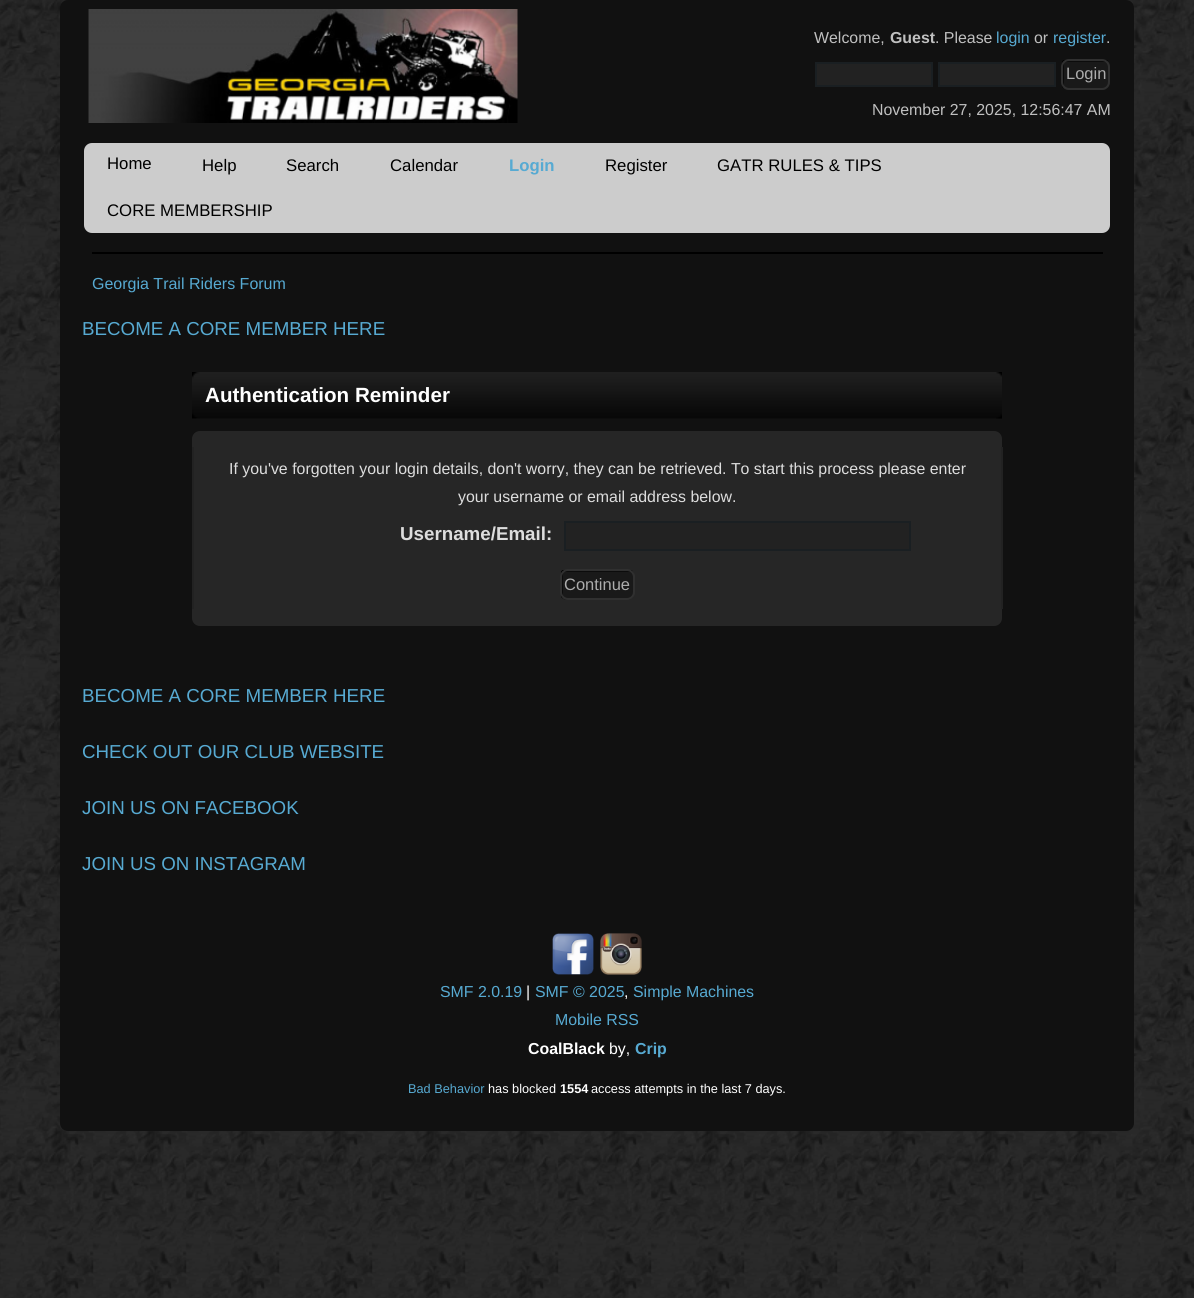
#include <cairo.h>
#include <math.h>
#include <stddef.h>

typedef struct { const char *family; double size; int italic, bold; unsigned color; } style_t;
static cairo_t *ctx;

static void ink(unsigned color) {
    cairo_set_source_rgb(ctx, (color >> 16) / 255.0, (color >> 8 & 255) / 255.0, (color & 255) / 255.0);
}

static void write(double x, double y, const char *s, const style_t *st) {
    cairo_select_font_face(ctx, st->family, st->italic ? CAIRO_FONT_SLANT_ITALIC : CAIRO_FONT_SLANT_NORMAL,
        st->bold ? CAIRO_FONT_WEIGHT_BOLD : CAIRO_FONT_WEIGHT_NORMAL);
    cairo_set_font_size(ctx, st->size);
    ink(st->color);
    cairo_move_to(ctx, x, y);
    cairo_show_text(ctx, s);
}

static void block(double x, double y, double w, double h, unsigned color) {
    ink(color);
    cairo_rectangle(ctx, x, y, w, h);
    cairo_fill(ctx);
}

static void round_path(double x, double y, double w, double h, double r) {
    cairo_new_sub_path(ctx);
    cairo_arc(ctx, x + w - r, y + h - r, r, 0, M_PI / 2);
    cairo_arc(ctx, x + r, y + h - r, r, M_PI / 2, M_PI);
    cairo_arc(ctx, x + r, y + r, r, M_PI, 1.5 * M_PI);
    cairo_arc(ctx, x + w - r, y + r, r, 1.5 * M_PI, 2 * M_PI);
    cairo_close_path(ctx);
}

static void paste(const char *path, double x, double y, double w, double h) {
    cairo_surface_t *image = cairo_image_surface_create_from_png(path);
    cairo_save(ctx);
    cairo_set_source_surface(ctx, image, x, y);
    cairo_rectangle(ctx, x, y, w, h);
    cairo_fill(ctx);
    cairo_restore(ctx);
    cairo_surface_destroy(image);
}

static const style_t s1 = {"Liberation Sans", 15.9, 0, 0, 0xc0c0c0};
static const style_t s2 = {"Liberation Sans", 15.9, 0, 1, 0xc0c0c0};
static const style_t s3 = {"Liberation Sans", 15.9, 0, 0, 0x57aad2};
static const style_t s4 = {"Liberation Sans", 16.5, 0, 0, 0xacacac};
static const style_t s5 = {"Liberation Sans", 16.75, 0, 0, 0x000000};
static const style_t s6 = {"Liberation Sans", 16.75, 0, 1, 0x57aad2};
static const style_t s7 = {"Liberation Sans", 16, 0, 0, 0x57aad2};
static const style_t s8 = {"Liberation Sans", 18.75, 0, 0, 0x57aad2};
static const style_t s9 = {"Liberation Sans", 20.6, 0, 1, 0xffffff};
static const style_t s10 = {"Liberation Sans", 15.9, 0, 0, 0xdddddd};
static const style_t s11 = {"Liberation Sans", 18.75, 0, 1, 0xdddddd};
static const style_t s12 = {"Liberation Sans", 15.9, 0, 0, 0xffffff};
static const style_t s13 = {"Liberation Sans", 15.9, 0, 1, 0xffffff};
static const style_t s14 = {"Liberation Sans", 15.9, 0, 1, 0x57aad2};
static const style_t s15 = {"Liberation Sans", 12.75, 0, 0, 0x57aad2};
static const style_t s16 = {"Liberation Sans", 12.75, 0, 0, 0xffffff};
static const style_t s17 = {"Liberation Sans", 12.75, 0, 1, 0xffffff};

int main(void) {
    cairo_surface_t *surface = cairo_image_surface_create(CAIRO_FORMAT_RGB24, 1194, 1298);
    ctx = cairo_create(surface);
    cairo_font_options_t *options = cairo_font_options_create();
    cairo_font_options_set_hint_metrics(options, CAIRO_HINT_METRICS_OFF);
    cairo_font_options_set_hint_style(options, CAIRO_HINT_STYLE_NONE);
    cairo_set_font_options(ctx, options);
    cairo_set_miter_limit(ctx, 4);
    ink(0xffffff);
    cairo_paint(ctx);
    paste("pic1.png", 0, 0, 1194, 1298);
    ink(0x111111);
    cairo_new_path(ctx);
    cairo_move_to(ctx, 68, 0);
    cairo_line_to(ctx, 1126, 0);
    cairo_curve_to(ctx, 1130.5, 0, 1134, 3.5, 1134, 8);
    cairo_line_to(ctx, 1134, 123);
    cairo_line_to(ctx, 60, 123);
    cairo_line_to(ctx, 60, 8);
    cairo_curve_to(ctx, 60, 3.5, 63.5, 0, 68, 0);
    cairo_close_path(ctx);
    cairo_fill(ctx);
    paste("pic2.png", 88, 9, 430, 114);
    write(814, 43, "Welcome,", &s1);
    write(890, 43, "Guest", &s2);
    write(935, 43, ". Please", &s1);
    write(996, 43, "login", &s3);
    write(1034, 43, "or", &s1);
    write(1053, 43, "register", &s3);
    write(1106, 43, ".", &s1);
    ink(0x222222);
    cairo_rectangle(ctx, 816, 63, 116, 23);
    cairo_fill_preserve(ctx);
    ink(0x1a1f22);
    cairo_stroke(ctx);
    ink(0x222222);
    cairo_rectangle(ctx, 939, 63, 116, 23);
    cairo_fill_preserve(ctx);
    ink(0x1a1f22);
    cairo_stroke(ctx);
    paste("pic3.png", 1062, 60, 48, 30);
    round_path(1062, 60, 47, 29, 7);
    ink(0x303030);
    cairo_stroke(ctx);
    write(1066, 79, "Login", &s4);
    write(872, 115, "November 27, 2025, 12:56:47 AM", &s1);
    block(60, 123, 1074, 800, 0x111111);
    ink(0xcccccc);
    round_path(84, 143, 1026, 90, 8);
    cairo_fill(ctx);
    write(107, 169, "Home", &s5);
    write(202, 171, "Help", &s5);
    write(286, 171, "Search", &s5);
    write(390, 171, "Calendar", &s5);
    write(509, 171, "Login", &s6);
    write(605, 171, "Register", &s5);
    write(717, 171, "GATR RULES & TIPS", &s5);
    write(107, 216, "CORE MEMBERSHIP", &s5);
    block(92, 252, 1011, 2, 0x000000);
    write(92, 289, "Georgia Trail Riders Forum", &s7);
    write(82, 335, "BECOME A CORE MEMBER HERE", &s8);
    paste("pic4.png", 192, 372, 810, 47);
    paste("pic5.png", 996, 372, 6, 47);
    write(205, 402, "Authentication Reminder", &s9);
    ink(0x262626);
    cairo_new_path(ctx);
    cairo_move_to(ctx, 200, 431);
    cairo_line_to(ctx, 994, 431);
    cairo_curve_to(ctx, 998.5, 431, 1002, 434.5, 1002, 439);
    cairo_line_to(ctx, 1002, 447);
    cairo_line_to(ctx, 192, 447);
    cairo_line_to(ctx, 192, 439);
    cairo_curve_to(ctx, 192, 434.5, 195.5, 431, 200, 431);
    cairo_close_path(ctx);
    cairo_fill(ctx);
    block(194, 447, 807, 162, 0x262626);
    block(1001, 447, 2, 162, 0x222222);
    block(192, 447, 2, 162, 0x222222);
    write(229, 474, "If you've forgotten your login details, don't worry, they can be retrieved. To start this process please enter", &s10);
    write(458, 502, "your username or email address below.", &s10);
    write(400, 540, "Username/Email:", &s11);
    ink(0x222222);
    cairo_rectangle(ctx, 565, 522, 345, 28);
    cairo_fill_preserve(ctx);
    ink(0x1a1f22);
    cairo_stroke(ctx);
    paste("pic6.png", 561, 570, 73, 30);
    round_path(561, 570, 73, 29, 7);
    ink(0x303030);
    cairo_stroke(ctx);
    write(564, 590, "Continue", &s4);
    ink(0x262626);
    cairo_new_path(ctx);
    cairo_move_to(ctx, 192, 609);
    cairo_line_to(ctx, 1002, 609);
    cairo_line_to(ctx, 1002, 618);
    cairo_curve_to(ctx, 1002, 622.5, 998.5, 626, 994, 626);
    cairo_line_to(ctx, 200, 626);
    cairo_curve_to(ctx, 195.5, 626, 192, 622.5, 192, 618);
    cairo_close_path(ctx);
    cairo_fill(ctx);
    write(82, 702, "BECOME A CORE MEMBER HERE", &s8);
    write(82, 758, "CHECK OUT OUR CLUB WEBSITE", &s8);
    write(82, 814, "JOIN US ON FACEBOOK", &s8);
    write(82, 870, "JOIN US ON INSTAGRAM", &s8);
    ink(0x111111);
    cairo_new_path(ctx);
    cairo_move_to(ctx, 60, 923);
    cairo_line_to(ctx, 1134, 923);
    cairo_line_to(ctx, 1134, 1123);
    cairo_curve_to(ctx, 1134, 1127.5, 1130.5, 1131, 1126, 1131);
    cairo_line_to(ctx, 68, 1131);
    cairo_curve_to(ctx, 63.5, 1131, 60, 1127.5, 60, 1123);
    cairo_close_path(ctx);
    cairo_fill(ctx);
    paste("pic7.png", 552, 933, 42, 42);
    paste("pic8.png", 600, 933, 42, 42);
    write(440, 997, "SMF 2.0.19", &s3);
    write(526, 997, "|", &s12);
    write(535, 997, "SMF © 2025", &s3);
    write(624, 997, ",", &s12);
    write(633, 997, "Simple Machines", &s3);
    write(555, 1025, "Mobile RSS", &s3);
    write(528, 1054, "CoalBlack", &s13);
    write(609, 1054, "by,", &s12);
    write(635, 1054, "Crip", &s14);
    write(408, 1093, "Bad Behavior", &s15);
    write(488, 1093, "has blocked", &s16);
    write(560, 1093, "1554", &s17);
    write(591, 1093, "access attempts in the last 7 days.", &s16);
    cairo_surface_write_to_png(surface, "screenshot.png");
    cairo_font_options_destroy(options);
    cairo_destroy(ctx);
    cairo_surface_destroy(surface);
    return 0;
}
